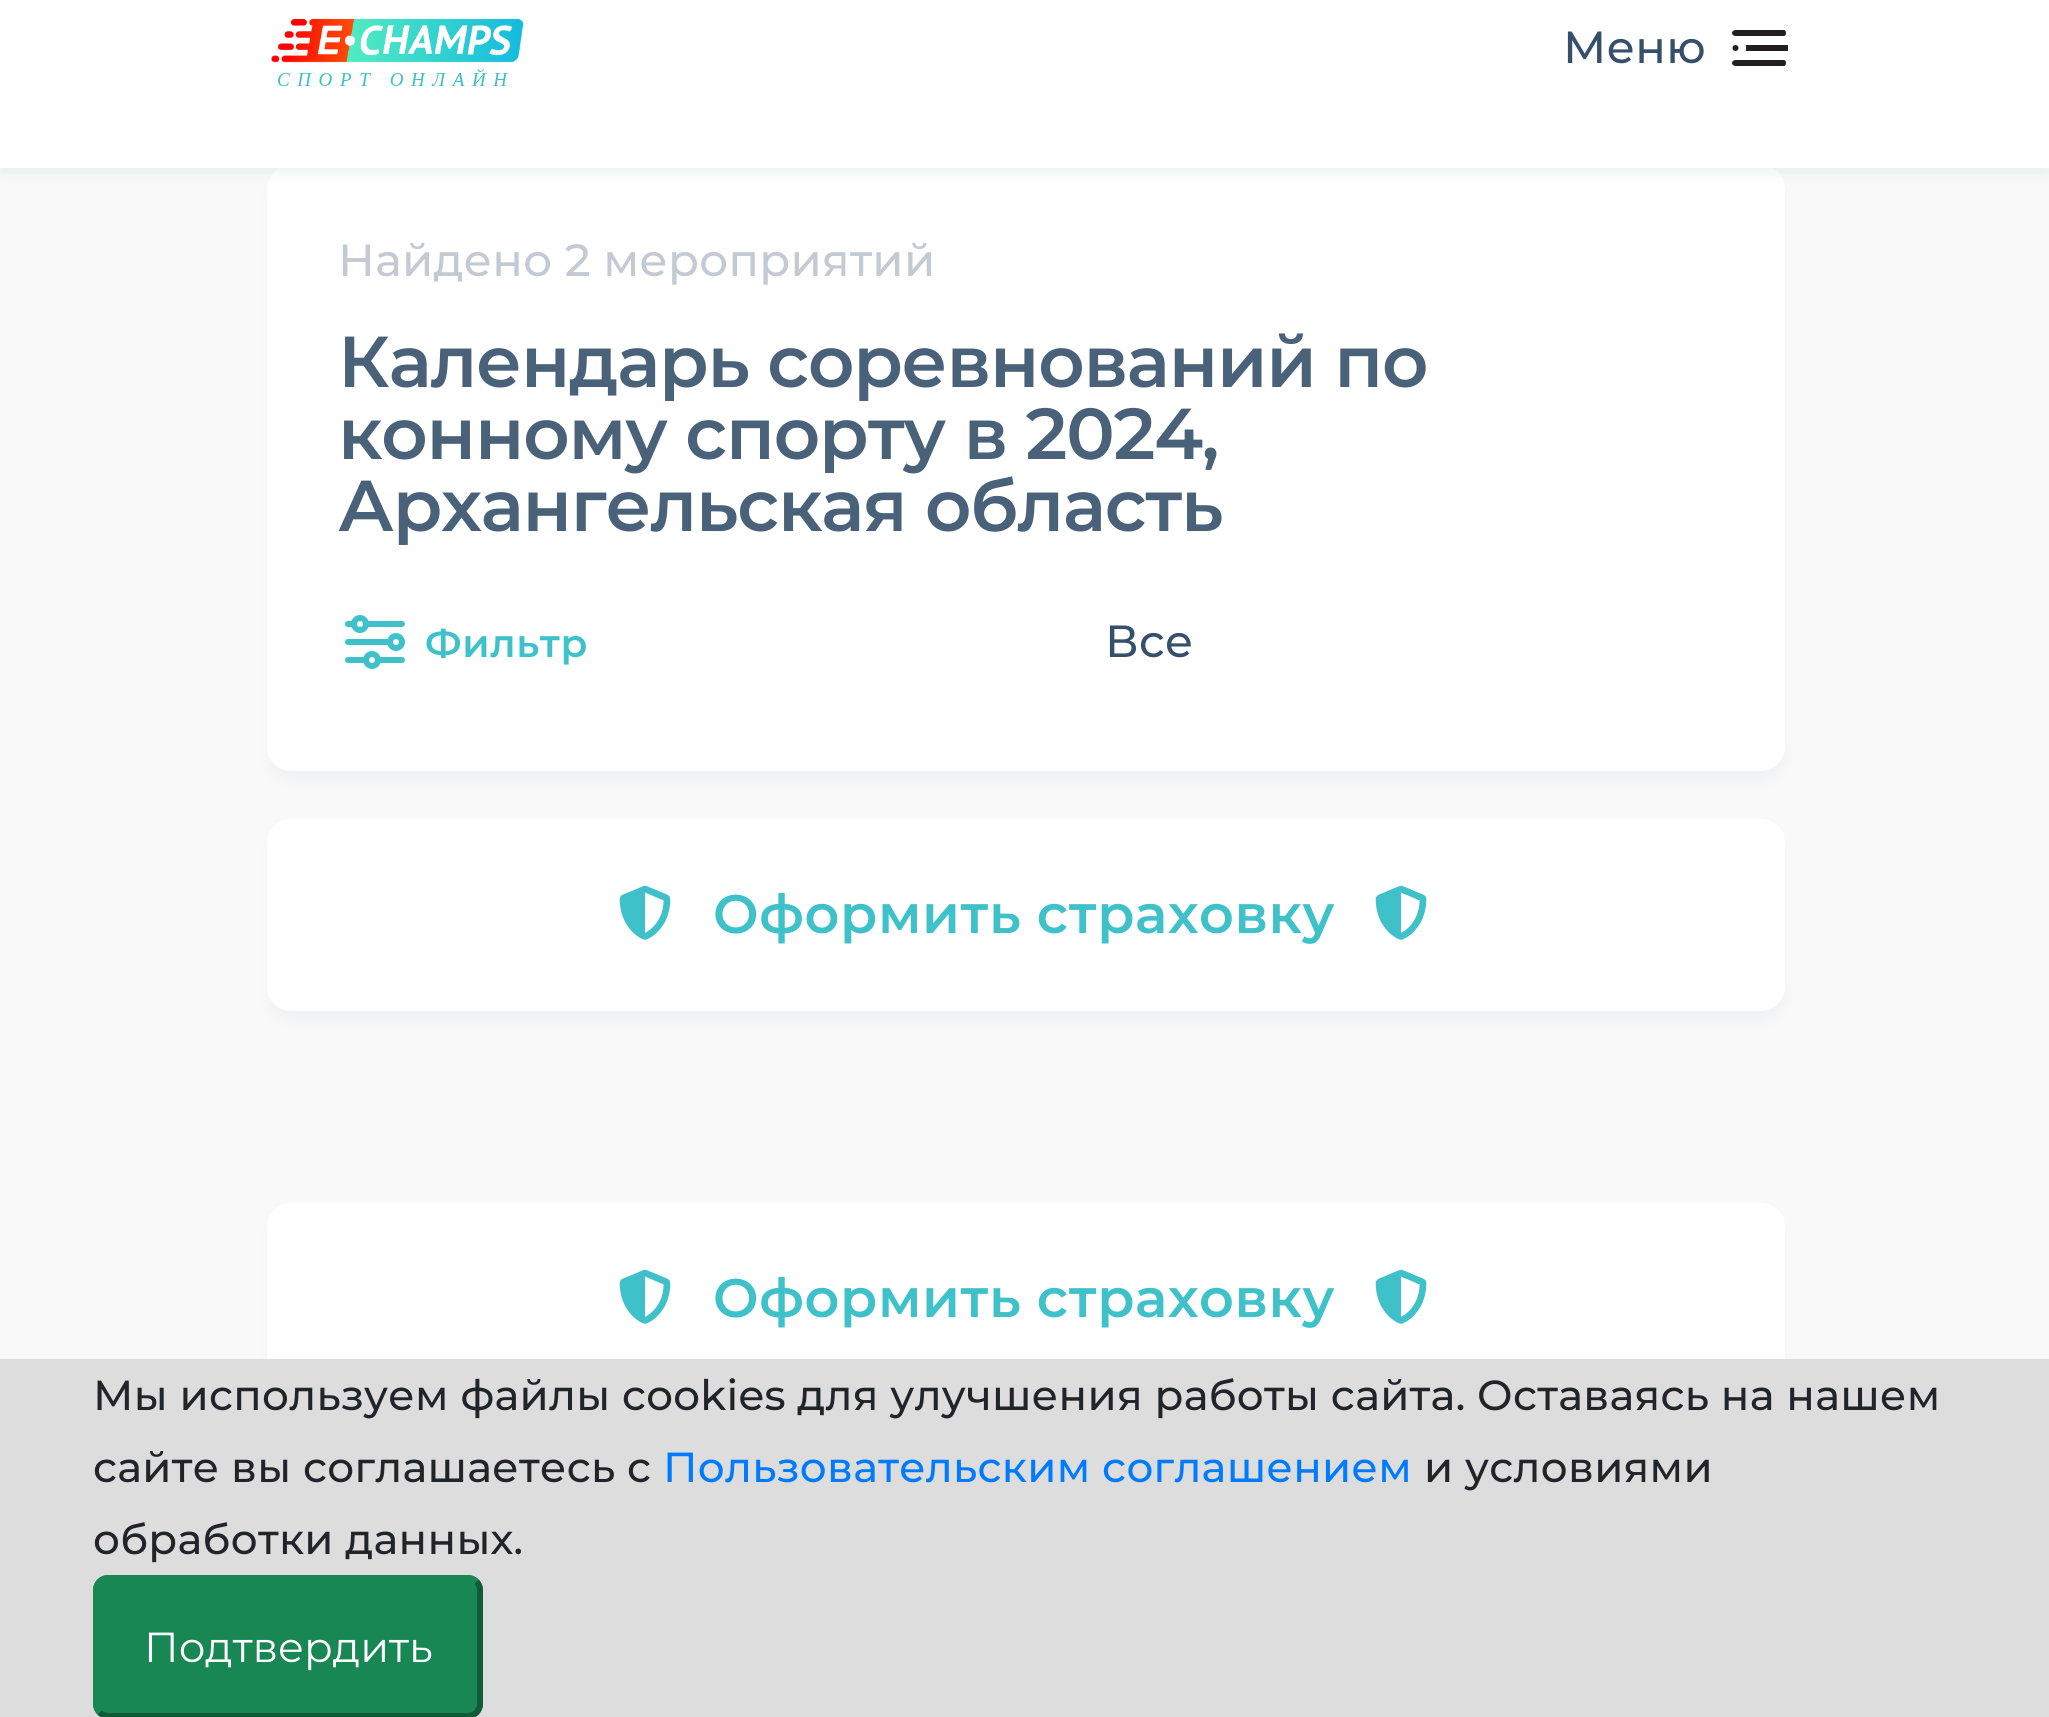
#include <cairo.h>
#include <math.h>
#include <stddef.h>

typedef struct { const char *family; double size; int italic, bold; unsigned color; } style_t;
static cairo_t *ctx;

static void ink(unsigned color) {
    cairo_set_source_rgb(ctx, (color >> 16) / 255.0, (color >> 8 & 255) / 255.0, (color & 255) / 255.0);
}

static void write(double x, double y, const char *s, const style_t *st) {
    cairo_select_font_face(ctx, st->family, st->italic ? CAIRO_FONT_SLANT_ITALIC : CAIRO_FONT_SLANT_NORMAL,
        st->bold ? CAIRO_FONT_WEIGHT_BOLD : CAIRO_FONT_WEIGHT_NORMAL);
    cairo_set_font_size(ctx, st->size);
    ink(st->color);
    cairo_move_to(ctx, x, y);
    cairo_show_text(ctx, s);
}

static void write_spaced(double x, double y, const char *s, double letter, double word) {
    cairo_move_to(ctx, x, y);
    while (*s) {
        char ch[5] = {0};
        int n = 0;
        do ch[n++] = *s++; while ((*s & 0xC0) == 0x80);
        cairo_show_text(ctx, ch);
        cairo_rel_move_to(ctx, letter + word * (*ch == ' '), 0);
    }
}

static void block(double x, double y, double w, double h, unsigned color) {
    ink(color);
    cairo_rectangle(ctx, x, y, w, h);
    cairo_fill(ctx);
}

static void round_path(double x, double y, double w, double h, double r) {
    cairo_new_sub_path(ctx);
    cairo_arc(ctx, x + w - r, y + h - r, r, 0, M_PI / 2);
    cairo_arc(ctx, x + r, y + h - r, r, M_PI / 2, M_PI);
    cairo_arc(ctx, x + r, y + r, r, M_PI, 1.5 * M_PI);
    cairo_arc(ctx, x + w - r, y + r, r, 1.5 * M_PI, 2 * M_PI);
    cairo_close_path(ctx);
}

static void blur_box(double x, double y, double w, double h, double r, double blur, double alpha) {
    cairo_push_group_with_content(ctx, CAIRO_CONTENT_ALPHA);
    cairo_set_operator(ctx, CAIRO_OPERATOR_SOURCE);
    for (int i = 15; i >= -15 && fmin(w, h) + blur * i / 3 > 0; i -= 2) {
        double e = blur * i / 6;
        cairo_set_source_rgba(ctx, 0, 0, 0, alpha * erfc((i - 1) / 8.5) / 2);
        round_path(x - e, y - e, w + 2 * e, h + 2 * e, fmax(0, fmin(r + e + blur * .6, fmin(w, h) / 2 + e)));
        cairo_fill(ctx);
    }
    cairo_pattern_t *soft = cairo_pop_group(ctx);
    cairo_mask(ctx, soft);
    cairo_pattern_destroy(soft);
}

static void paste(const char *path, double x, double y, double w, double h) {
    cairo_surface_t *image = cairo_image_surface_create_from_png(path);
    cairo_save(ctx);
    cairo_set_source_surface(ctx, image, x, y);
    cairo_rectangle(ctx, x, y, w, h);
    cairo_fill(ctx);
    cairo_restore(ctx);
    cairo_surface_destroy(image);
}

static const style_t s1 = {"Montserrat", 42, 0, 0, 0xffffff};

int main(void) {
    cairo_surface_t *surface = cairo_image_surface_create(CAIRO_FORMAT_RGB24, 2049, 1717);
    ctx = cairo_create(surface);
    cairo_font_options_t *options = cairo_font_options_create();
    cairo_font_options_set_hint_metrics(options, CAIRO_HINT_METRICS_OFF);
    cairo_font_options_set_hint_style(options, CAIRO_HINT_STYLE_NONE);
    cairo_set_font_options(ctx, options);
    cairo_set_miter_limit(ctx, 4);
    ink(0xfaf9f9);
    cairo_paint(ctx);
    ink(0x458e9d);
    blur_box(267, 177, 1518, 606, 24, 6, 0.06);
    ink(0xffffff);
    round_path(267, 165, 1518, 606, 24);
    cairo_fill(ctx);
    ink(0x458e9d);
    blur_box(0, 6, 2049, 168, 0, 6, 0.1);
    block(0, 0, 2049, 168, 0xffffff);
    paste("pic1.png", 271, 19, 253, 67);
    cairo_select_font_face(ctx, "Montserrat Medium", CAIRO_FONT_SLANT_NORMAL, CAIRO_FONT_WEIGHT_NORMAL);
    cairo_set_font_size(ctx, 45);
    ink(0x364f6b);
    write_spaced(1563, 63, "Меню", 0.3, 0);
    block(1746, 45, 42, 6, 0x231f20);
    cairo_new_path(ctx);
    cairo_move_to(ctx, 1784, 66);
    cairo_line_to(ctx, 1736, 66);
    cairo_curve_to(ctx, 1734, 66, 1732, 65, 1732, 63);
    cairo_curve_to(ctx, 1732, 61, 1734, 60, 1736, 60);
    cairo_line_to(ctx, 1784, 60);
    cairo_curve_to(ctx, 1785, 60, 1786, 61, 1786, 63);
    cairo_curve_to(ctx, 1786, 65, 1785, 66, 1784, 66);
    cairo_close_path(ctx);
    cairo_move_to(ctx, 1735.5, 51);
    cairo_curve_to(ctx, 1731.5, 51, 1731.5, 45, 1735.5, 45);
    cairo_curve_to(ctx, 1739.5, 45, 1739.5, 51, 1735.5, 51);
    cairo_close_path(ctx);
    cairo_move_to(ctx, 1784, 36);
    cairo_line_to(ctx, 1736, 36);
    cairo_curve_to(ctx, 1734, 36, 1732, 35, 1732, 33);
    cairo_curve_to(ctx, 1732, 31, 1734, 30, 1736, 30);
    cairo_line_to(ctx, 1784, 30);
    cairo_curve_to(ctx, 1785, 30, 1786, 31, 1786, 33);
    cairo_curve_to(ctx, 1786, 35, 1785, 36, 1784, 36);
    cairo_close_path(ctx);
    cairo_fill(ctx);
    ink(0xc3cad3);
    write_spaced(338, 276, "Найдено 2 мероприятий", 0.3, 0);
    cairo_select_font_face(ctx, "Montserrat SemiBold", CAIRO_FONT_SLANT_NORMAL, CAIRO_FONT_WEIGHT_NORMAL);
    cairo_set_font_size(ctx, 72);
    ink(0x4a617a);
    write_spaced(338, 387, "Календарь соревнований по", -1.2, 0);
    write_spaced(338, 459, "конному спорту в 2024,", -1.2, 0);
    write_spaced(338, 531, "Архангельская область", -1.2, 0);
    paste("pic2.png", 345, 615, 60, 54);
    cairo_set_font_size(ctx, 39);
    ink(0x3fc1c9);
    write_spaced(425, 657, "Фильтр", 0.6, 0);
    cairo_select_font_face(ctx, "Montserrat Medium", CAIRO_FONT_SLANT_NORMAL, CAIRO_FONT_WEIGHT_NORMAL);
    cairo_set_font_size(ctx, 45);
    ink(0x364f6b);
    write_spaced(1105, 657, "Все", 0.3, 0);
    ink(0x458e9d);
    blur_box(267, 831, 1518, 192, 24, 6, 0.06);
    ink(0xffffff);
    round_path(267, 819, 1518, 192, 24);
    cairo_fill(ctx);
    paste("pic3.png", 619, 885, 52, 55);
    cairo_select_font_face(ctx, "Montserrat SemiBold", CAIRO_FONT_SLANT_NORMAL, CAIRO_FONT_WEIGHT_NORMAL);
    cairo_set_font_size(ctx, 54);
    ink(0x3fc1c9);
    write_spaced(713, 933, "Оформить страховку", 0.6, 0);
    paste("pic3.png", 1375, 885, 52, 55);
    ink(0x458e9d);
    blur_box(267, 1215, 1518, 192, 24, 6, 0.06);
    ink(0xffffff);
    round_path(267, 1203, 1518, 192, 24);
    cairo_fill(ctx);
    paste("pic3.png", 619, 1269, 52, 55);
    ink(0x3fc1c9);
    write_spaced(713, 1317, "Оформить страховку", 0.6, 0);
    paste("pic3.png", 1375, 1269, 52, 55);
    block(0, 1359, 2049, 358, 0xdddddd);
    cairo_select_font_face(ctx, "Montserrat Medium", CAIRO_FONT_SLANT_NORMAL, CAIRO_FONT_WEIGHT_NORMAL);
    cairo_set_font_size(ctx, 42);
    ink(0x212529);
    write_spaced(93, 1410, "Мы используем файлы cookies для улучшения работы сайта. Оставаясь на нашем", 0.3, 0);
    write_spaced(93, 1482, "сайте вы соглашаетесь с", 0.3, 0);
    ink(0x007bff);
    write_spaced(663, 1482, "Пользовательским соглашением", 0.3, 0);
    ink(0x212529);
    write_spaced(1424, 1482, "и условиями", 0.3, 0);
    write_spaced(93, 1554, "обработки данных.", 0.3, 0);
    ink(0x198754);
    round_path(93, 1575, 390, 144, 15);
    cairo_fill(ctx);
    cairo_new_path(ctx);
    cairo_move_to(ctx, 476.5, 1581.5);
    cairo_curve_to(ctx, 478.5, 1584, 480, 1587, 480, 1590);
    cairo_line_to(ctx, 480, 1704);
    cairo_curve_to(ctx, 480, 1707, 478.5, 1710, 476.5, 1712.5);
    cairo_curve_to(ctx, 474, 1714.5, 471, 1716, 468, 1716);
    cairo_line_to(ctx, 108, 1716);
    cairo_curve_to(ctx, 105, 1716, 102, 1714.5, 99.5, 1712.5);
    ink(0x115a38);
    cairo_set_line_width(ctx, 6);
    cairo_stroke(ctx);
    cairo_new_path(ctx);
    cairo_move_to(ctx, 99.5, 1712.5);
    cairo_curve_to(ctx, 97.5, 1710, 96, 1707, 96, 1704);
    cairo_line_to(ctx, 96, 1590);
    cairo_curve_to(ctx, 96, 1587, 97.5, 1584, 99.5, 1581.5);
    cairo_curve_to(ctx, 102, 1579.5, 105, 1578, 108, 1578);
    cairo_line_to(ctx, 468, 1578);
    cairo_curve_to(ctx, 471, 1578, 474, 1579.5, 476.5, 1581.5);
    ink(0x198754);
    cairo_stroke(ctx);
    write(144, 1662, "Подтвердить", &s1);
    cairo_surface_write_to_png(surface, "screenshot.png");
    cairo_font_options_destroy(options);
    cairo_destroy(ctx);
    cairo_surface_destroy(surface);
    return 0;
}
